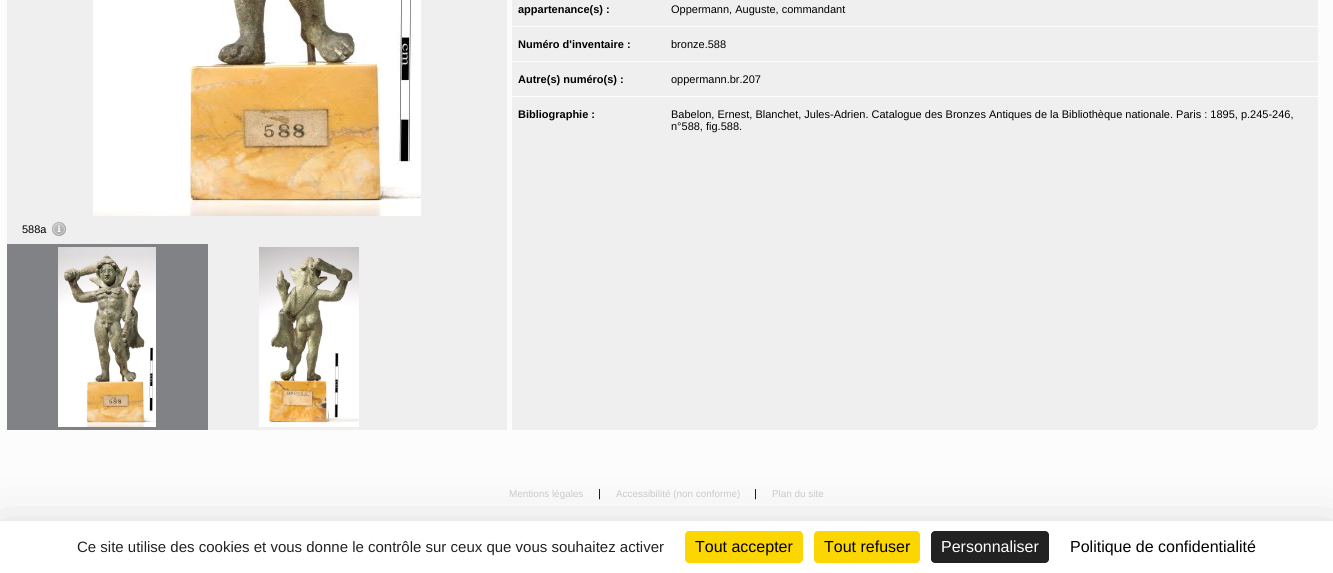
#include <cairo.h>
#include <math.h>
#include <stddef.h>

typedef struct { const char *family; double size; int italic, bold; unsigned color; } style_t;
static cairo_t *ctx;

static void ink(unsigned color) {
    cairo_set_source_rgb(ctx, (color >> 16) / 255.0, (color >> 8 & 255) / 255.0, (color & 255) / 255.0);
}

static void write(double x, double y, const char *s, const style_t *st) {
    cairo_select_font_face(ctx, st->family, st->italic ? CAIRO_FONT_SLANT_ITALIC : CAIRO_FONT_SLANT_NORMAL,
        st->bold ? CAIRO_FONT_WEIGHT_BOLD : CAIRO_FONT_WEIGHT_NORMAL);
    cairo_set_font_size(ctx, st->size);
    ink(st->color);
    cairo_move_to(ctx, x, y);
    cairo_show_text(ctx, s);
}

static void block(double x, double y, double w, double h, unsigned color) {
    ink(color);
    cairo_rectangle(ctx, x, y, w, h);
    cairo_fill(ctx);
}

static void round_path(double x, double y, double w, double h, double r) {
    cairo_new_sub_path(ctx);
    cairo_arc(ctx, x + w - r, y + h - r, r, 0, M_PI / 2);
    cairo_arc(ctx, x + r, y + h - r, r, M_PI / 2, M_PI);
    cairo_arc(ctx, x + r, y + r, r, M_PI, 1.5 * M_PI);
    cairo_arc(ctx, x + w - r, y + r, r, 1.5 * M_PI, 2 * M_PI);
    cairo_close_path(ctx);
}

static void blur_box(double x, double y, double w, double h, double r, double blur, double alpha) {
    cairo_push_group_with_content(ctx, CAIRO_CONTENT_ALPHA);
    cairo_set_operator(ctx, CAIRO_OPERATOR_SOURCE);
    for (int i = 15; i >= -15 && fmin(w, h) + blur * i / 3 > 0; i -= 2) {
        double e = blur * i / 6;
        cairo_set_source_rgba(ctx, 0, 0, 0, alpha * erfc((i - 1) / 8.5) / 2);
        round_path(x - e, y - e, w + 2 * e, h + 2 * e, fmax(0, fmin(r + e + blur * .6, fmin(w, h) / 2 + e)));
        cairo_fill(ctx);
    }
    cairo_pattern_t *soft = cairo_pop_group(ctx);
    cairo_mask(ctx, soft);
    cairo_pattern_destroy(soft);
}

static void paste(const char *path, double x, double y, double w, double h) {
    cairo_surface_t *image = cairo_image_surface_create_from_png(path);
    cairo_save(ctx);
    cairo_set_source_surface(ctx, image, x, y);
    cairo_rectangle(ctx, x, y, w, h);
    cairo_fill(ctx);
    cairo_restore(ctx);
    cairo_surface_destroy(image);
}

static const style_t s1 = {"Liberation Sans", 11, 0, 1, 0x000000};
static const style_t s2 = {"Liberation Sans", 11, 0, 0, 0x000000};
static const style_t s3 = {"Liberation Sans", 9.9, 0, 0, 0xcccccc};
static const style_t s4 = {"Liberation Sans", 15, 0, 0, 0x222222};
static const style_t s5 = {"Liberation Sans", 16, 0, 0, 0x000000};
static const style_t s6 = {"Liberation Sans", 16, 0, 0, 0xffffff};

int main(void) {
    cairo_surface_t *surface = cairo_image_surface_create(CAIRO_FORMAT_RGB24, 1333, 573);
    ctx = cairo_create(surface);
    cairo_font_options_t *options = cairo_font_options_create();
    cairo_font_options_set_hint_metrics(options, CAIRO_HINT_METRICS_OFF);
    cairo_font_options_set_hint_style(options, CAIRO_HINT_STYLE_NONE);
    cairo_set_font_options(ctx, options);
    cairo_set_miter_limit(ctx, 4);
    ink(0xfcfcfc);
    cairo_paint(ctx);
    block(512, 0, 806, 430, 0xefefef);
    paste("pic1.png", 1313, 425, 5, 5);
    write(518, 13, "appartenance(s) :", &s1);
    write(671, 13, "Oppermann, Auguste, commandant", &s2);
    block(512, 26, 806, 1, 0xfcfcfc);
    write(518, 48, "Numéro d'inventaire :", &s1);
    write(671, 48, "bronze.588", &s2);
    block(512, 61, 806, 1, 0xfcfcfc);
    write(518, 83, "Autre(s) numéro(s) :", &s1);
    write(671, 83, "oppermann.br.207", &s2);
    block(512, 96, 806, 1, 0xfcfcfc);
    write(518, 118, "Bibliographie :", &s1);
    write(671, 118, "Babelon, Ernest, Blanchet, Jules-Adrien. Catalogue des Bronzes Antiques de la Bibliothèque nationale. Paris : 1895, p.245-246,", &s2);
    write(671, 130, "n°588, fig.588.", &s2);
    block(7, 0, 500, 430, 0xefefef);
    paste("pic2.png", 93, 0, 328, 216);
    write(22, 233, "588a", &s2);
    paste("pic3.png", 52, 222, 14, 14);
    block(7, 244, 201, 186, 0x818285);
    paste("pic4.png", 58, 247, 98, 180);
    paste("pic5.png", 259, 247, 100, 180);
    write(509, 497, "Mentions légales", &s3);
    write(598, 497, "|", &s2);
    write(616, 497, "Accessibilité (non conforme)", &s3);
    write(754, 497, "|", &s2);
    write(772, 497, "Plan du site", &s3);
    ink(0x000000);
    blur_box(0, 541, 1333, 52, 0, 30, 0.25);
    block(0, 521, 1333, 52, 0xffffff);
    write(77, 552, "Ce site utilise des cookies et vous donne le contrôle sur ceux que vous souhaitez activer", &s4);
    ink(0xfbd600);
    round_path(685, 531, 118, 32, 4);
    cairo_fill(ctx);
    write(695, 552, "Tout accepter", &s5);
    ink(0xfbd600);
    round_path(814, 531, 106, 32, 4);
    cairo_fill(ctx);
    write(824, 552, "Tout refuser", &s5);
    ink(0x222222);
    round_path(931, 531, 118, 32, 4);
    cairo_fill(ctx);
    write(941, 552, "Personnaliser", &s6);
    write(1070, 552, "Politique de confidentialité", &s5);
    cairo_surface_write_to_png(surface, "screenshot.png");
    cairo_font_options_destroy(options);
    cairo_destroy(ctx);
    cairo_surface_destroy(surface);
    return 0;
}
